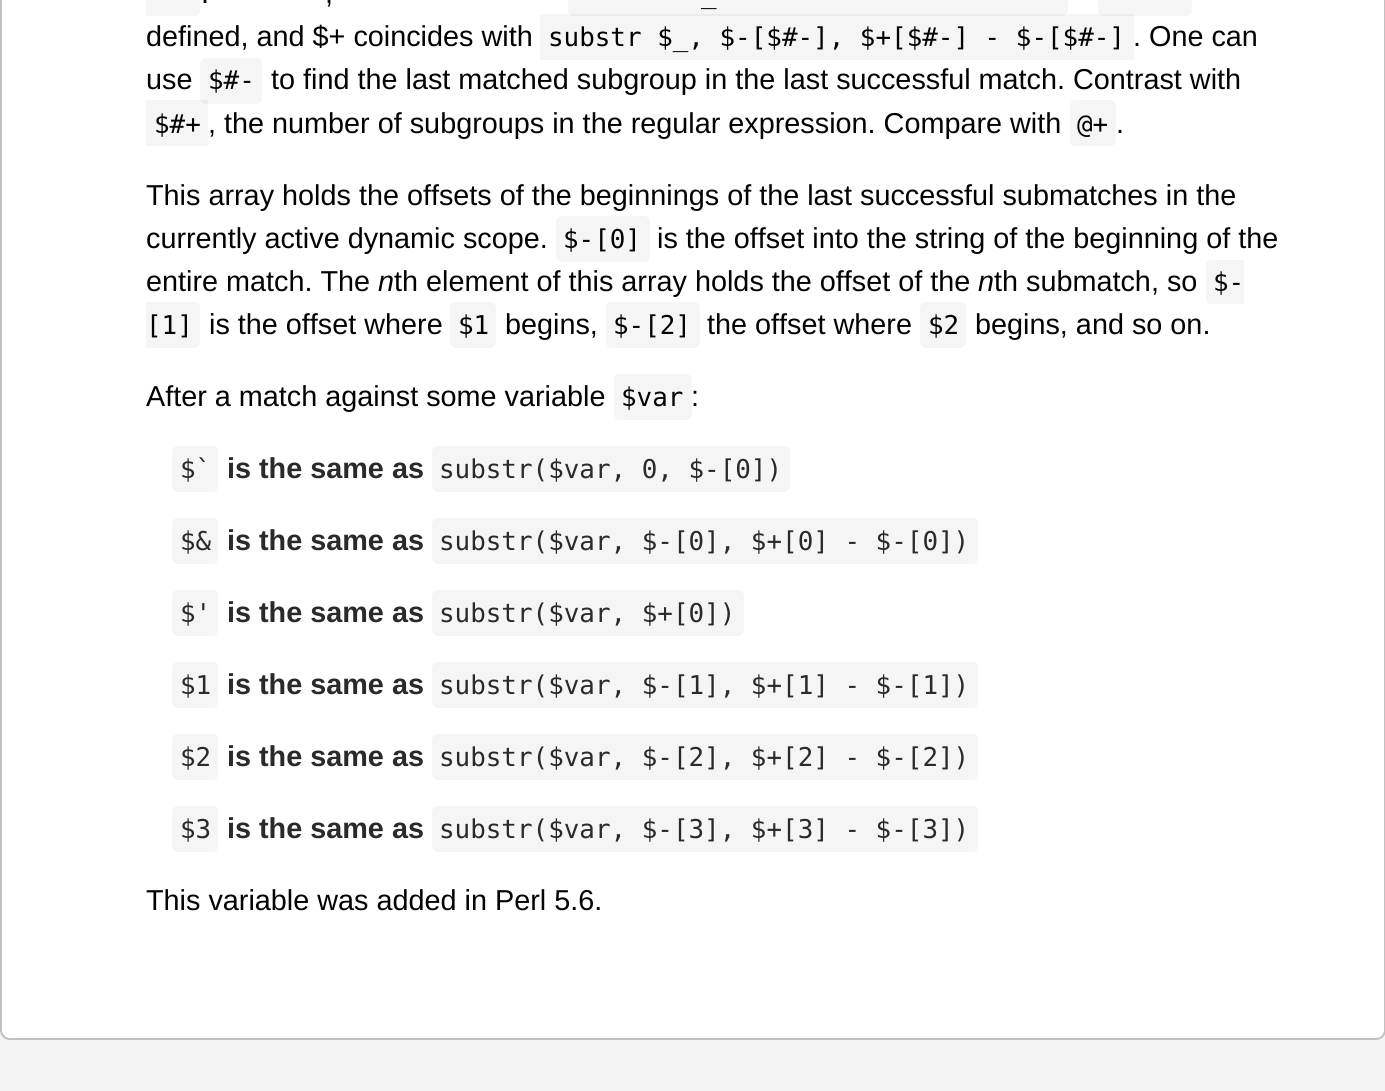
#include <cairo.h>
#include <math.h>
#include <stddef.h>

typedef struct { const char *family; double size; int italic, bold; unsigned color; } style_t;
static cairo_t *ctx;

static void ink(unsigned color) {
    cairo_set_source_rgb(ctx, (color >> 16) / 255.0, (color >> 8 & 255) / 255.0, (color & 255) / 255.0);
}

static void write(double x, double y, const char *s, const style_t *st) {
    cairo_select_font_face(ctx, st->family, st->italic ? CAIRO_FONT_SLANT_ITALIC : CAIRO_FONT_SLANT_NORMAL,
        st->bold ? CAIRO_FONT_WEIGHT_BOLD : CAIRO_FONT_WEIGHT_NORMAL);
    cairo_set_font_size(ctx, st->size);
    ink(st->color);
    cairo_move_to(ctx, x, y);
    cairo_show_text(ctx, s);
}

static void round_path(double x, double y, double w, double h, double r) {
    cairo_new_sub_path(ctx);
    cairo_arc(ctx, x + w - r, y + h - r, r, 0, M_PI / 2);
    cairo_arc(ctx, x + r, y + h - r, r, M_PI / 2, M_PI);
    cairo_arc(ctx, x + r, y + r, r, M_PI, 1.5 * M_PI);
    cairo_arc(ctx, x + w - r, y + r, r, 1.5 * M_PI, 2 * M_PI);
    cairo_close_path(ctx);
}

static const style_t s1 = {"Liberation Sans", 28.8, 0, 0, 0x020202};
static const style_t s2 = {"DejaVu Sans Mono", 25.9, 0, 0, 0x020202};
static const style_t s3 = {"Liberation Sans", 28.8, 1, 0, 0x020202};
static const style_t s4 = {"DejaVu Sans Mono", 25.9, 0, 0, 0x2a2a2a};
static const style_t s5 = {"Liberation Sans", 28.8, 0, 1, 0x2a2a2a};

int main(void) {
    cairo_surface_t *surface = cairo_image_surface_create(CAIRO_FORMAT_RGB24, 1385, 1091);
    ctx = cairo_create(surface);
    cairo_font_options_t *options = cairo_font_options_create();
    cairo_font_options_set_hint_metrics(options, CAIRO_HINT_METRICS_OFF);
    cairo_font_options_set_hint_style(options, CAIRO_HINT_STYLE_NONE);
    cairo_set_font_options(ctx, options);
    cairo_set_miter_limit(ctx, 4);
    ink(0xf4f4f5);
    cairo_paint(ctx);
    ink(0xffffff);
    cairo_new_path(ctx);
    cairo_move_to(ctx, 1, -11);
    cairo_line_to(ctx, 1385, -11);
    cairo_line_to(ctx, 1385, 1030);
    cairo_curve_to(ctx, 1385, 1035, 1381, 1039, 1376, 1039);
    cairo_line_to(ctx, 10, 1039);
    cairo_curve_to(ctx, 5, 1039, 1, 1035, 1, 1030);
    cairo_close_path(ctx);
    cairo_fill_preserve(ctx);
    ink(0xc1c1c1);
    cairo_stroke(ctx);
    ink(0xf5f5f5);
    cairo_new_path(ctx);
    cairo_move_to(ctx, 146, -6);
    cairo_line_to(ctx, 194, -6);
    cairo_curve_to(ctx, 197.5, -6, 200, -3.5, 200, 0);
    cairo_line_to(ctx, 200, 10);
    cairo_curve_to(ctx, 200, 13.5, 197.5, 16, 194, 16);
    cairo_line_to(ctx, 146, 16);
    cairo_close_path(ctx);
    cairo_fill(ctx);
    write(201, 3, ".", &s1);
    write(325, 3, ",", &s1);
    ink(0xf5f5f5);
    round_path(1098, -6, 94, 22, 6);
    cairo_fill(ctx);
    round_path(568, -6, 500, 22, 6);
    cairo_fill(ctx);
    write(701, 3, "_", &s2);
    write(146, 46, "defined, and $+ coincides with", &s1);
    cairo_set_source_rgba(ctx, 0, 0, 0, 0.04);
    cairo_rectangle(ctx, 540, 14, 594, 46);
    cairo_fill(ctx);
    write(548, 46, "substr $_, $-[$#-], $+[$#-] - $-[$#-]", &s2);
    write(1133, 46, ". One can", &s1);
    write(146, 89, "use", &s1);
    ink(0xf5f5f5);
    round_path(200, 58, 62, 46, 6);
    cairo_fill(ctx);
    write(208, 89, "$#-", &s2);
    write(271, 89, "to find the last matched subgroup in the last successful match. Contrast with", &s1);
    cairo_set_source_rgba(ctx, 0, 0, 0, 0.04);
    cairo_rectangle(ctx, 146, 100, 62, 46);
    cairo_fill(ctx);
    write(154, 133, "$#+", &s2);
    write(208, 133, ", the number of subgroups in the regular expression. Compare with", &s1);
    ink(0xf5f5f5);
    round_path(1070, 100, 46, 46, 6);
    cairo_fill(ctx);
    write(1077, 133, "@+", &s2);
    write(1116, 133, ".", &s1);
    write(146, 205, "This array holds the offsets of the beginnings of the last successful submatches in the", &s1);
    write(146, 248, "currently active dynamic scope.", &s1);
    ink(0xf5f5f5);
    round_path(556, 216, 94, 46, 6);
    cairo_fill(ctx);
    write(563, 248, "$-[0]", &s2);
    write(657, 248, "is the offset into the string of the beginning of the", &s1);
    write(146, 291, "entire match. The", &s1);
    write(378, 291, "n", &s3);
    write(394, 291, "th element of this array holds the offset of the", &s1);
    write(978, 291, "n", &s3);
    write(994, 291, "th submatch, so", &s1);
    ink(0xf5f5f5);
    cairo_new_path(ctx);
    cairo_move_to(ctx, 1212, 260);
    cairo_line_to(ctx, 1244, 260);
    cairo_line_to(ctx, 1244, 304);
    cairo_line_to(ctx, 1212, 304);
    cairo_curve_to(ctx, 1208.5, 304, 1206, 301.5, 1206, 298);
    cairo_line_to(ctx, 1206, 266);
    cairo_curve_to(ctx, 1206, 262.5, 1208.5, 260, 1212, 260);
    cairo_close_path(ctx);
    cairo_fill(ctx);
    write(1213, 291, "$-", &s2);
    ink(0xf5f5f5);
    cairo_new_path(ctx);
    cairo_move_to(ctx, 146, 302);
    cairo_line_to(ctx, 194, 302);
    cairo_curve_to(ctx, 197.5, 302, 200, 304.5, 200, 308);
    cairo_line_to(ctx, 200, 342);
    cairo_curve_to(ctx, 200, 345.5, 197.5, 348, 194, 348);
    cairo_line_to(ctx, 146, 348);
    cairo_close_path(ctx);
    cairo_fill(ctx);
    write(146, 334, "[1]", &s2);
    write(209, 334, "is the offset where", &s1);
    ink(0xf5f5f5);
    round_path(450, 302, 46, 46, 6);
    cairo_fill(ctx);
    write(458, 334, "$1", &s2);
    write(505, 334, "begins,", &s1);
    ink(0xf5f5f5);
    round_path(606, 302, 94, 46, 6);
    cairo_fill(ctx);
    write(613, 334, "$-[2]", &s2);
    write(707, 334, "the offset where", &s1);
    ink(0xf5f5f5);
    round_path(920, 302, 46, 46, 6);
    cairo_fill(ctx);
    write(928, 334, "$2", &s2);
    write(975, 334, "begins, and so on.", &s1);
    write(146, 406, "After a match against some variable", &s1);
    ink(0xf5f5f5);
    round_path(614, 374, 78, 46, 6);
    cairo_fill(ctx);
    write(621, 406, "$var", &s2);
    write(691, 406, ":", &s1);
    ink(0xf5f5f5);
    round_path(172, 446, 46, 46, 6);
    cairo_fill(ctx);
    write(180, 478, "$`", &s4);
    write(227, 478, "is the same as", &s5);
    ink(0xf5f5f5);
    round_path(432, 446, 358, 46, 6);
    cairo_fill(ctx);
    write(439, 478, "substr($var, 0, $-[0])", &s4);
    ink(0xf5f5f5);
    round_path(172, 518, 46, 46, 6);
    cairo_fill(ctx);
    write(180, 550, "$&", &s4);
    write(227, 550, "is the same as", &s5);
    ink(0xf5f5f5);
    round_path(432, 518, 546, 46, 6);
    cairo_fill(ctx);
    write(439, 550, "substr($var, $-[0], $+[0] - $-[0])", &s4);
    ink(0xf5f5f5);
    round_path(172, 590, 46, 46, 6);
    cairo_fill(ctx);
    write(180, 622, "$'", &s4);
    write(227, 622, "is the same as", &s5);
    ink(0xf5f5f5);
    round_path(432, 590, 312, 46, 6);
    cairo_fill(ctx);
    write(439, 622, "substr($var, $+[0])", &s4);
    ink(0xf5f5f5);
    round_path(172, 662, 46, 46, 6);
    cairo_fill(ctx);
    write(180, 694, "$1", &s4);
    write(227, 694, "is the same as", &s5);
    ink(0xf5f5f5);
    round_path(432, 662, 546, 46, 6);
    cairo_fill(ctx);
    write(439, 694, "substr($var, $-[1], $+[1] - $-[1])", &s4);
    ink(0xf5f5f5);
    round_path(172, 734, 46, 46, 6);
    cairo_fill(ctx);
    write(180, 766, "$2", &s4);
    write(227, 766, "is the same as", &s5);
    ink(0xf5f5f5);
    round_path(432, 734, 546, 46, 6);
    cairo_fill(ctx);
    write(439, 766, "substr($var, $-[2], $+[2] - $-[2])", &s4);
    ink(0xf5f5f5);
    round_path(172, 806, 46, 46, 6);
    cairo_fill(ctx);
    write(180, 838, "$3", &s4);
    write(227, 838, "is the same as", &s5);
    ink(0xf5f5f5);
    round_path(432, 806, 546, 46, 6);
    cairo_fill(ctx);
    write(439, 838, "substr($var, $-[3], $+[3] - $-[3])", &s4);
    write(146, 910, "This variable was added in Perl 5.6.", &s1);
    cairo_surface_write_to_png(surface, "screenshot.png");
    cairo_font_options_destroy(options);
    cairo_destroy(ctx);
    cairo_surface_destroy(surface);
    return 0;
}
